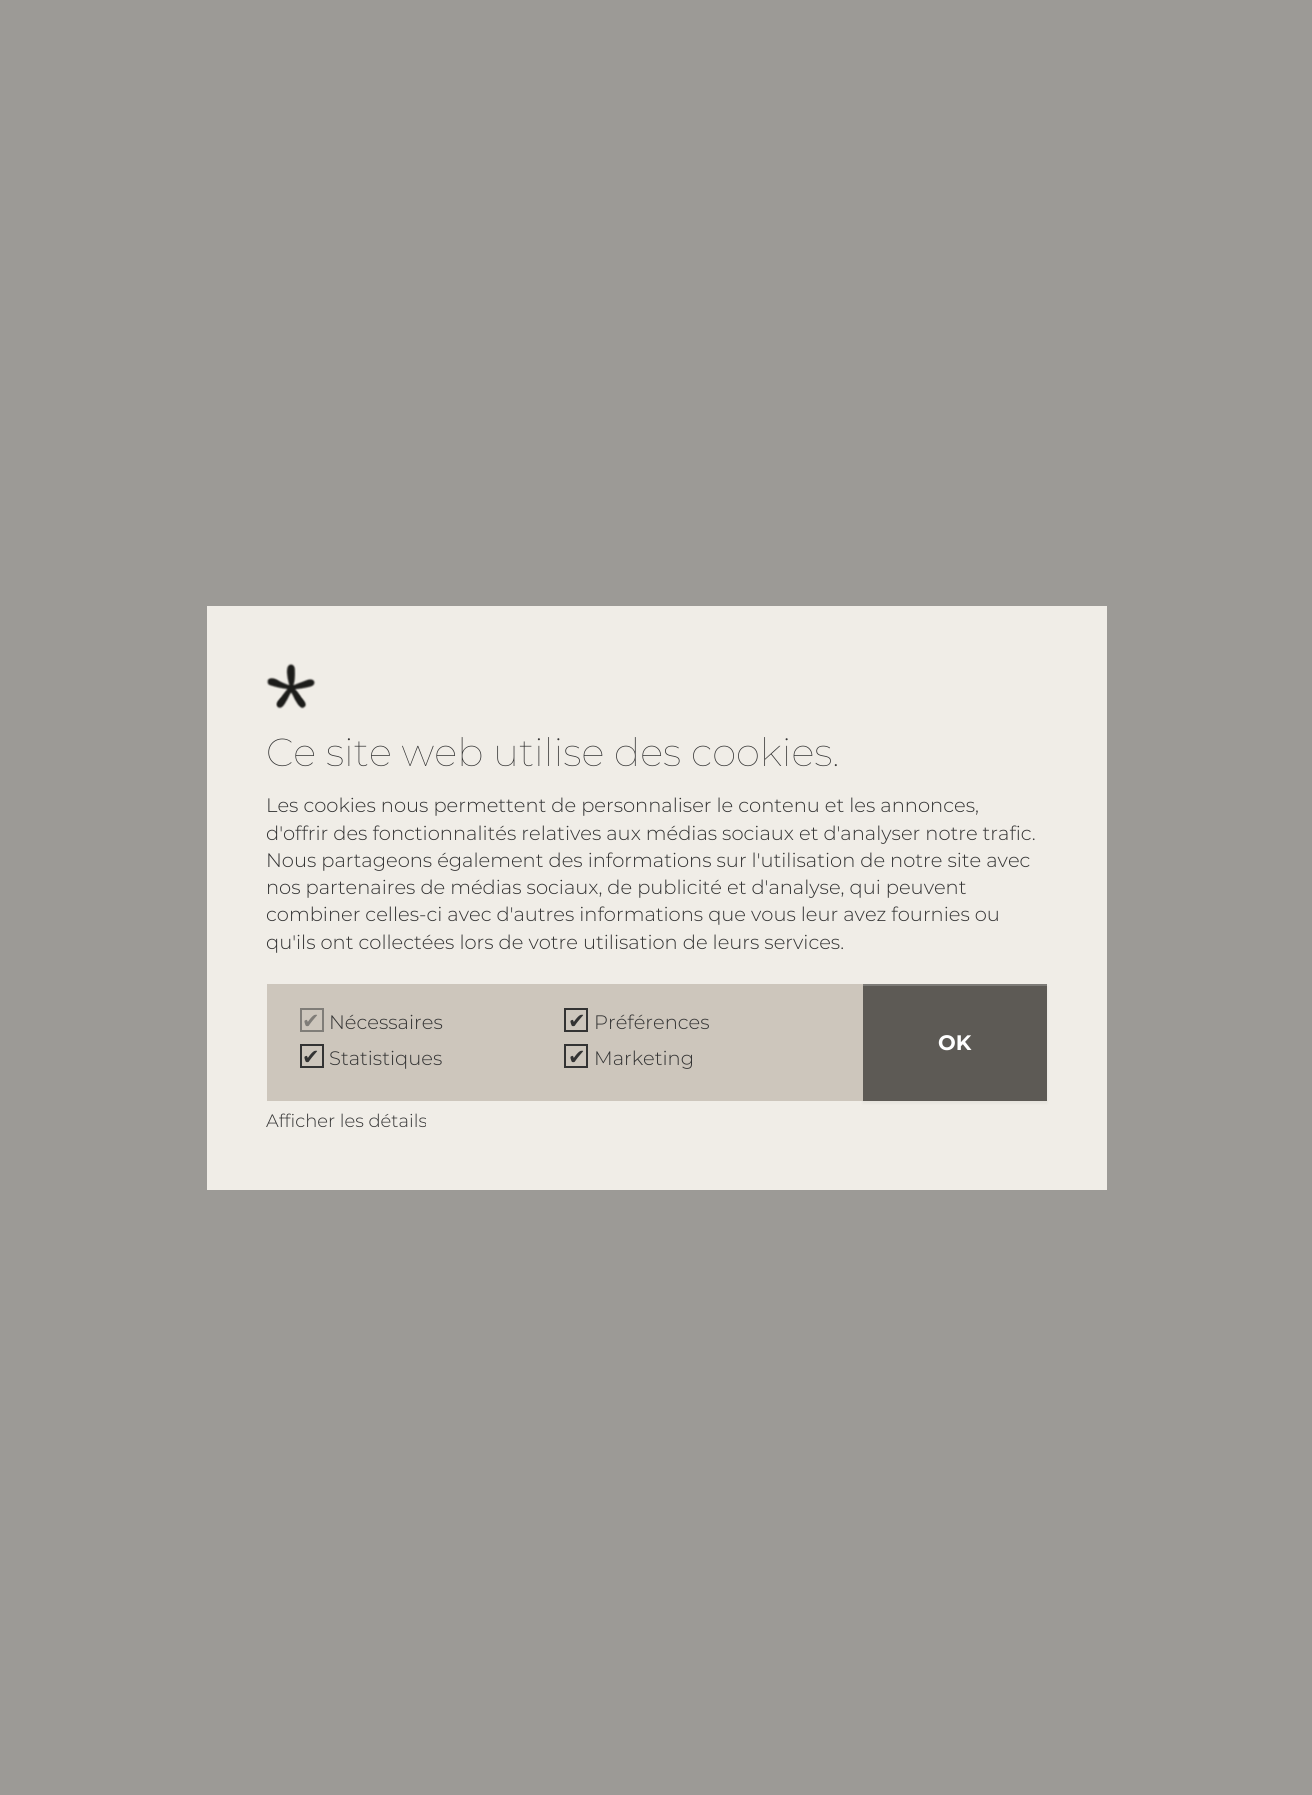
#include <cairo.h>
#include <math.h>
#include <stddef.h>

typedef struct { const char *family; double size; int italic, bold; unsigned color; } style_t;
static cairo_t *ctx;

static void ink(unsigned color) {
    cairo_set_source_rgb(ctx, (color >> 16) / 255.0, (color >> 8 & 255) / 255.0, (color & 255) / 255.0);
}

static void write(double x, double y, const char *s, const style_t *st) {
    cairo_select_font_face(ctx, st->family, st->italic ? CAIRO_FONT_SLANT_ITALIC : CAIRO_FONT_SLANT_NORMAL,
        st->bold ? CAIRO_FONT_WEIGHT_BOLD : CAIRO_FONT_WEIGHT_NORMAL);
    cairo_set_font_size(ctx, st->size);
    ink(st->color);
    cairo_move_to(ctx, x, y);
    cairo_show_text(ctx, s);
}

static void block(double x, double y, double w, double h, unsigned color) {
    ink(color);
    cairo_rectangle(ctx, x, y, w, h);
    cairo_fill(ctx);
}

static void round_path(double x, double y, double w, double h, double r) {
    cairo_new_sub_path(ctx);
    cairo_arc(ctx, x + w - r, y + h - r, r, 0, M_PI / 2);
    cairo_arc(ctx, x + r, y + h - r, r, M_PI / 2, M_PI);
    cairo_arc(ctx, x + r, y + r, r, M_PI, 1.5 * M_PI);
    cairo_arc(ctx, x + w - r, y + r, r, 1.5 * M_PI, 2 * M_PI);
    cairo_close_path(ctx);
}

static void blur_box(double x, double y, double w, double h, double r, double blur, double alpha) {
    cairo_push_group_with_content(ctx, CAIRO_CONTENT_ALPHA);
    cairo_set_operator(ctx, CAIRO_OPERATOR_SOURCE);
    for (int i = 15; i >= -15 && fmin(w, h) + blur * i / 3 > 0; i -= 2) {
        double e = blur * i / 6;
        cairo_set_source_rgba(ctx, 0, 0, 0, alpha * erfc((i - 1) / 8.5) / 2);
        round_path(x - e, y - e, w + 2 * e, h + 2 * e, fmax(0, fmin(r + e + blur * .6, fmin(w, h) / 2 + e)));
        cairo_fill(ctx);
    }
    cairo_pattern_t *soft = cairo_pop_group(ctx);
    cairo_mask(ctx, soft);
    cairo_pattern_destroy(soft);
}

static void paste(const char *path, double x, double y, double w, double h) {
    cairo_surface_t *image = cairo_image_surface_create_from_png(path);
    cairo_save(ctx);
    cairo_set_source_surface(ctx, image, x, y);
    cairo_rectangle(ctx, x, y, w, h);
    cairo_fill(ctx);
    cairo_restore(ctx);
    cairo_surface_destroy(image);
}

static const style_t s1 = {"Montserrat Thin", 39, 0, 0, 0x333333};
static const style_t s2 = {"Montserrat Light", 19.5, 0, 0, 0x333333};
static const style_t s3 = {"DejaVu Sans", 21, 0, 0, 0x807d78};
static const style_t s4 = {"DejaVu Sans", 21, 0, 0, 0x333333};
static const style_t s5 = {"Montserrat", 21, 0, 1, 0xffffff};
static const style_t s6 = {"Montserrat Light", 18, 0, 0, 0x333333};

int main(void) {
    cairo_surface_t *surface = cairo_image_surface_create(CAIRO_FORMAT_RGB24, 1312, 1795);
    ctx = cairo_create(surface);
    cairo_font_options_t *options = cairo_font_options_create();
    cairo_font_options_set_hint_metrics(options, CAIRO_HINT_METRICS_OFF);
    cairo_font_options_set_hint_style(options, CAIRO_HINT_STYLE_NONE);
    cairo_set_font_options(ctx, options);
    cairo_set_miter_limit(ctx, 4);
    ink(0x9c9a96);
    cairo_paint(ctx);
    block(207, 606, 900, 584, 0xf0ede7);
    paste("pic1.png", 266, 663, 50, 46);
    write(266, 766, "Ce site web utilise des cookies.", &s1);
    write(266, 812, "Les cookies nous permettent de personnaliser le contenu et les annonces,", &s2);
    write(266, 840, "d'offrir des fonctionnalités relatives aux médias sociaux et d'analyser notre trafic.", &s2);
    write(266, 867, "Nous partageons également des informations sur l'utilisation de notre site avec", &s2);
    write(266, 894, "nos partenaires de médias sociaux, de publicité et d'analyse, qui peuvent", &s2);
    write(266, 921, "combiner celles-ci avec d'autres informations que vous leur avez fournies ou", &s2);
    write(266, 949, "qu'ils ont collectées lors de votre utilisation de leurs services.", &s2);
    ink(0x000000);
    blur_box(863, 986, 184, 117, 0, 1.5, 0.05);
    block(267, 984, 596, 117, 0xcdc6bc);
    cairo_rectangle(ctx, 301, 1009, 22, 22);
    ink(0x807d78);
    cairo_stroke(ctx);
    write(302, 1028, "✔", &s3);
    write(329, 1029, "Nécessaires", &s2);
    cairo_rectangle(ctx, 565, 1009, 22, 22);
    cairo_stroke(ctx);
    write(568, 1028, "✔", &s4);
    write(594, 1029, "Préférences", &s2);
    cairo_rectangle(ctx, 301, 1045, 22, 22);
    cairo_stroke(ctx);
    write(302, 1064, "✔", &s4);
    write(329, 1065, "Statistiques", &s2);
    cairo_rectangle(ctx, 565, 1045, 22, 22);
    cairo_stroke(ctx);
    write(568, 1064, "✔", &s4);
    write(594, 1065, "Marketing", &s2);
    block(863, 986, 184, 115, 0x5d5a55);
    block(863, 984, 184, 2, 0x7d7b77);
    write(938, 1050, "OK", &s5);
    write(266, 1127, "Afficher les détails", &s6);
    cairo_surface_write_to_png(surface, "screenshot.png");
    cairo_font_options_destroy(options);
    cairo_destroy(ctx);
    cairo_surface_destroy(surface);
    return 0;
}
